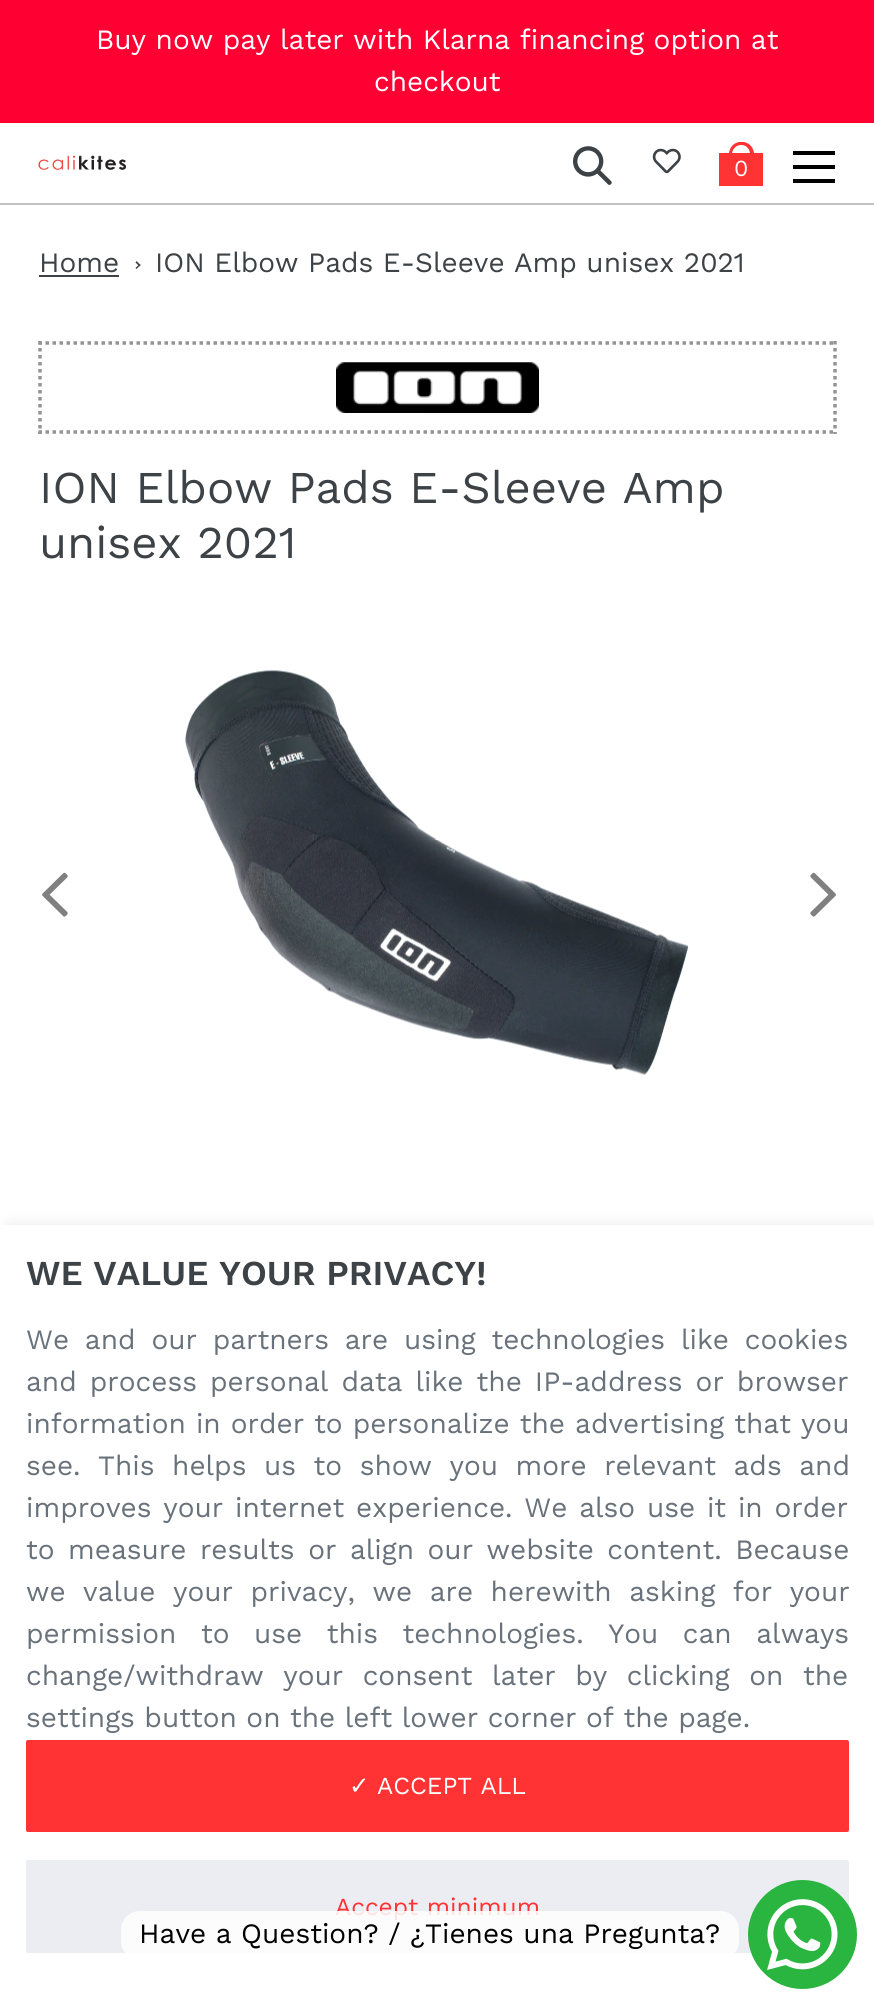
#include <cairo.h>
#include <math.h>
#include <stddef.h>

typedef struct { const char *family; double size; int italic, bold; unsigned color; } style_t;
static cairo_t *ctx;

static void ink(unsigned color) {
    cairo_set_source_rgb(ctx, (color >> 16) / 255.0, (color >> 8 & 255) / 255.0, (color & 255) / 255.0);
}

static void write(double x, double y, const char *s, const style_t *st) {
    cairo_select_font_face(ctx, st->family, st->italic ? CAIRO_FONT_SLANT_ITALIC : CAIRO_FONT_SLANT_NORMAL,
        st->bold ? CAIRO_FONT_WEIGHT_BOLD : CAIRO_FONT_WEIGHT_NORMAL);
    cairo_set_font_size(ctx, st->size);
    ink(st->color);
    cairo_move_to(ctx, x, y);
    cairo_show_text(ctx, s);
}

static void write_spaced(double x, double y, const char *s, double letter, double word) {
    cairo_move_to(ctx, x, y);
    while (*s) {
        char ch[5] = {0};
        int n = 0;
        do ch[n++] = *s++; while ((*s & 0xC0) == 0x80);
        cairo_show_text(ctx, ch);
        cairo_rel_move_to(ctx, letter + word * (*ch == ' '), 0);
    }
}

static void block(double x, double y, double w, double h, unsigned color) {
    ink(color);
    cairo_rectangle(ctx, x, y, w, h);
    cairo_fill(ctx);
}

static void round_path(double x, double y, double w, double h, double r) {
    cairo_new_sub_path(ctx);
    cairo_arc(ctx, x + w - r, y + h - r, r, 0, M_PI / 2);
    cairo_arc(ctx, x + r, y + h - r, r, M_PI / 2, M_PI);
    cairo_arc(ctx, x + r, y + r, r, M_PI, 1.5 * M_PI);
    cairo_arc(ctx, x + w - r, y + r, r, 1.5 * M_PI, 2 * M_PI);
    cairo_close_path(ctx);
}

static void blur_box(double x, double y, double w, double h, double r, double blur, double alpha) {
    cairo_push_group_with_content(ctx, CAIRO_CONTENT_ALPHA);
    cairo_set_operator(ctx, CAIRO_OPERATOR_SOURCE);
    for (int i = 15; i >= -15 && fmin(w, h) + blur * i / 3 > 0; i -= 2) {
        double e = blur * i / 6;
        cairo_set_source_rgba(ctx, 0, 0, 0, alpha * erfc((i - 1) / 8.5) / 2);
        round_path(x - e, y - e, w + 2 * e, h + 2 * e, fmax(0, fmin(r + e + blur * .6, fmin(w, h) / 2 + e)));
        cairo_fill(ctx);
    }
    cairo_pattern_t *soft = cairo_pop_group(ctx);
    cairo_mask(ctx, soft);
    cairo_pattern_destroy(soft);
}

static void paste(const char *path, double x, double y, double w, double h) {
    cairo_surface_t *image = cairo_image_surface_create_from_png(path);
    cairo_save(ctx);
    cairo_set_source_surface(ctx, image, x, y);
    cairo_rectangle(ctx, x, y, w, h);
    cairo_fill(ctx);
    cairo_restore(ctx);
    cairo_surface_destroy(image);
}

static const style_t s1 = {"Work Sans", 28, 0, 0, 0xffffff};
static const style_t s2 = {"Work Sans", 23, 0, 0, 0xffffff};
static const style_t s3 = {"Work Sans", 28, 0, 0, 0x3d4246};
static const style_t s4 = {"Work Sans", 45.5, 0, 0, 0x3d4246};
static const style_t s5 = {"Work Sans SemiBold", 35, 0, 0, 0x3d4246};
static const style_t s6 = {"Work Sans", 28, 0, 0, 0x69727b};
static const style_t s7 = {"DejaVu Sans", 24.5, 0, 0, 0xffffff};
static const style_t s8 = {"Work Sans", 24.5, 0, 0, 0xffffff};
static const style_t s9 = {"Work Sans", 24.5, 0, 0, 0xff3333};
static const style_t s10 = {"Work Sans", 28, 0, 0, 0x000000};

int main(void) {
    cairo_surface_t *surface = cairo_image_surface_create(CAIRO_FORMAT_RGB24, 874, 2006);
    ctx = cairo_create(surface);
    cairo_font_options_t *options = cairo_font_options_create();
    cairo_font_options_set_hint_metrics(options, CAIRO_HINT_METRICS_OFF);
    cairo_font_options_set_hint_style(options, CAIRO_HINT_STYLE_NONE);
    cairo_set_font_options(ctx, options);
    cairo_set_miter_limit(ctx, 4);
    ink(0xffffff);
    cairo_paint(ctx);
    block(0, 0, 874, 123, 0xff0033);
    write(96, 49, "Buy now pay later with Klarna financing option at", &s1);
    write(374, 91, "checkout", &s1);
    block(0, 203, 874, 2, 0xc2c2c2);
    paste("pic1.png", 38, 155, 88, 15);
    paste("pic2.png", 573, 146, 39, 39);
    paste("pic3.png", 652, 148, 29, 26);
    cairo_save(ctx);
    cairo_rectangle(ctx, 719, 142, 44, 44);
    cairo_clip(ctx);
    ink(0xff3333);
    cairo_new_path(ctx);
    cairo_move_to(ctx, 754, 153);
    cairo_curve_to(ctx, 752, 138, 731, 138, 729, 153);
    cairo_line_to(ctx, 719, 153);
    cairo_line_to(ctx, 719, 186);
    cairo_line_to(ctx, 763, 186);
    cairo_line_to(ctx, 763, 153);
    cairo_close_path(ctx);
    cairo_move_to(ctx, 741, 145);
    cairo_curve_to(ctx, 746, 145, 749, 148, 750, 153);
    cairo_line_to(ctx, 732, 153);
    cairo_curve_to(ctx, 733, 148, 737, 145, 741, 145);
    cairo_close_path(ctx);
    cairo_fill(ctx);
    cairo_restore(ctx);
    write(734, 176, "0", &s2);
    block(793, 151, 42, 4, 0x000000);
    block(793, 165, 42, 4, 0x000000);
    block(793, 179, 42, 4, 0x000000);
    write(39, 272, "Home", &s3);
    block(39, 275, 80, 2, 0x3d4246);
    cairo_new_path(ctx);
    cairo_move_to(ctx, 136.5, 261);
    cairo_line_to(ctx, 140.5, 265);
    cairo_line_to(ctx, 139.5, 266.5);
    cairo_line_to(ctx, 135.5, 262.5);
    cairo_close_path(ctx);
    cairo_fill(ctx);
    cairo_new_path(ctx);
    cairo_move_to(ctx, 139.5, 264);
    cairo_line_to(ctx, 140.5, 265);
    cairo_line_to(ctx, 136.5, 269);
    cairo_line_to(ctx, 135.5, 268);
    cairo_close_path(ctx);
    cairo_fill(ctx);
    write(155, 272, "ION Elbow Pads E-Sleeve Amp unisex 2021", &s3);
    cairo_new_path(ctx);
    cairo_move_to(ctx, 38.5, 343);
    cairo_line_to(ctx, 836.5, 343);
    ink(0x949494);
    cairo_set_line_width(ctx, 3.5);
    cairo_set_dash(ctx, (double[]){3.5, 3.5}, 2, 0);
    cairo_stroke(ctx);
    cairo_new_path(ctx);
    cairo_move_to(ctx, 835, 341);
    cairo_line_to(ctx, 835, 434);
    cairo_stroke(ctx);
    cairo_new_path(ctx);
    cairo_move_to(ctx, 38.5, 432);
    cairo_line_to(ctx, 836.5, 432);
    cairo_stroke(ctx);
    cairo_new_path(ctx);
    cairo_move_to(ctx, 40, 341);
    cairo_line_to(ctx, 40, 434);
    cairo_stroke(ctx);
    paste("pic4.png", 336, 362, 203, 51);
    write(39, 503, "ION Elbow Pads E-Sleeve Amp", &s4);
    write(39, 558, "unisex 2021", &s4);
    paste("pic5.png", 42, 872, 26, 45);
    paste("pic6.png", 185, 670, 504, 405);
    paste("pic7.png", 810, 872, 26, 45);
    ink(0x000000);
    blur_box(9, 1225, 864, 772, 0, 7, 0.1);
    block(0, 1225, 874, 781, 0xffffff);
    write(26, 1285, "WE VALUE YOUR PRIVACY!", &s5);
    cairo_select_font_face(ctx, "Work Sans", CAIRO_FONT_SLANT_NORMAL, CAIRO_FONT_WEIGHT_NORMAL);
    cairo_set_font_size(ctx, 28);
    ink(0x69727b);
    write_spaced(26, 1349, "We and our partners are using technologies like cookies", 0, 6.25);
    write_spaced(26, 1391, "and process personal data like the IP-address or browser", 0, 3.5);
    write_spaced(26, 1433, "information in order to personalize the advertising that you", 0, 0.5);
    write_spaced(26, 1475, "see. This helps us to show you more relevant ads and", 0, 8);
    write_spaced(26, 1517, "improves your internet experience. We also use it in order", 0, 2.25);
    write_spaced(26, 1559, "to measure results or align our website content. Because", 0, 4);
    write_spaced(26, 1601, "we value your privacy, we are herewith asking for your", 0, 8);
    write_spaced(26, 1643, "permission to use this technologies. You can always", 0, 15);
    write_spaced(26, 1685, "change/withdraw your consent later by clicking on the", 0, 10);
    write(26, 1727, "settings button on the left lower corner of the page.", &s6);
    ink(0xff3333);
    round_path(26, 1740, 823, 92, 2);
    cairo_fill(ctx);
    write(349, 1794, "✓", &s7);
    write(377, 1794, "ACCEPT ALL", &s8);
    ink(0xececf3);
    round_path(26, 1860, 823, 93, 2);
    cairo_fill(ctx);
    write(335, 1915, "Accept minimum", &s9);
    cairo_set_source_rgba(ctx, 1, 1, 1, 0.85);
    round_path(121, 1911, 618, 49, 19);
    cairo_fill(ctx);
    write(139, 1943, "Have a Question? / ¿Tienes una Pregunta?", &s10);
    paste("pic8.png", 748, 1880, 109, 109);
    cairo_surface_write_to_png(surface, "screenshot.png");
    cairo_font_options_destroy(options);
    cairo_destroy(ctx);
    cairo_surface_destroy(surface);
    return 0;
}
